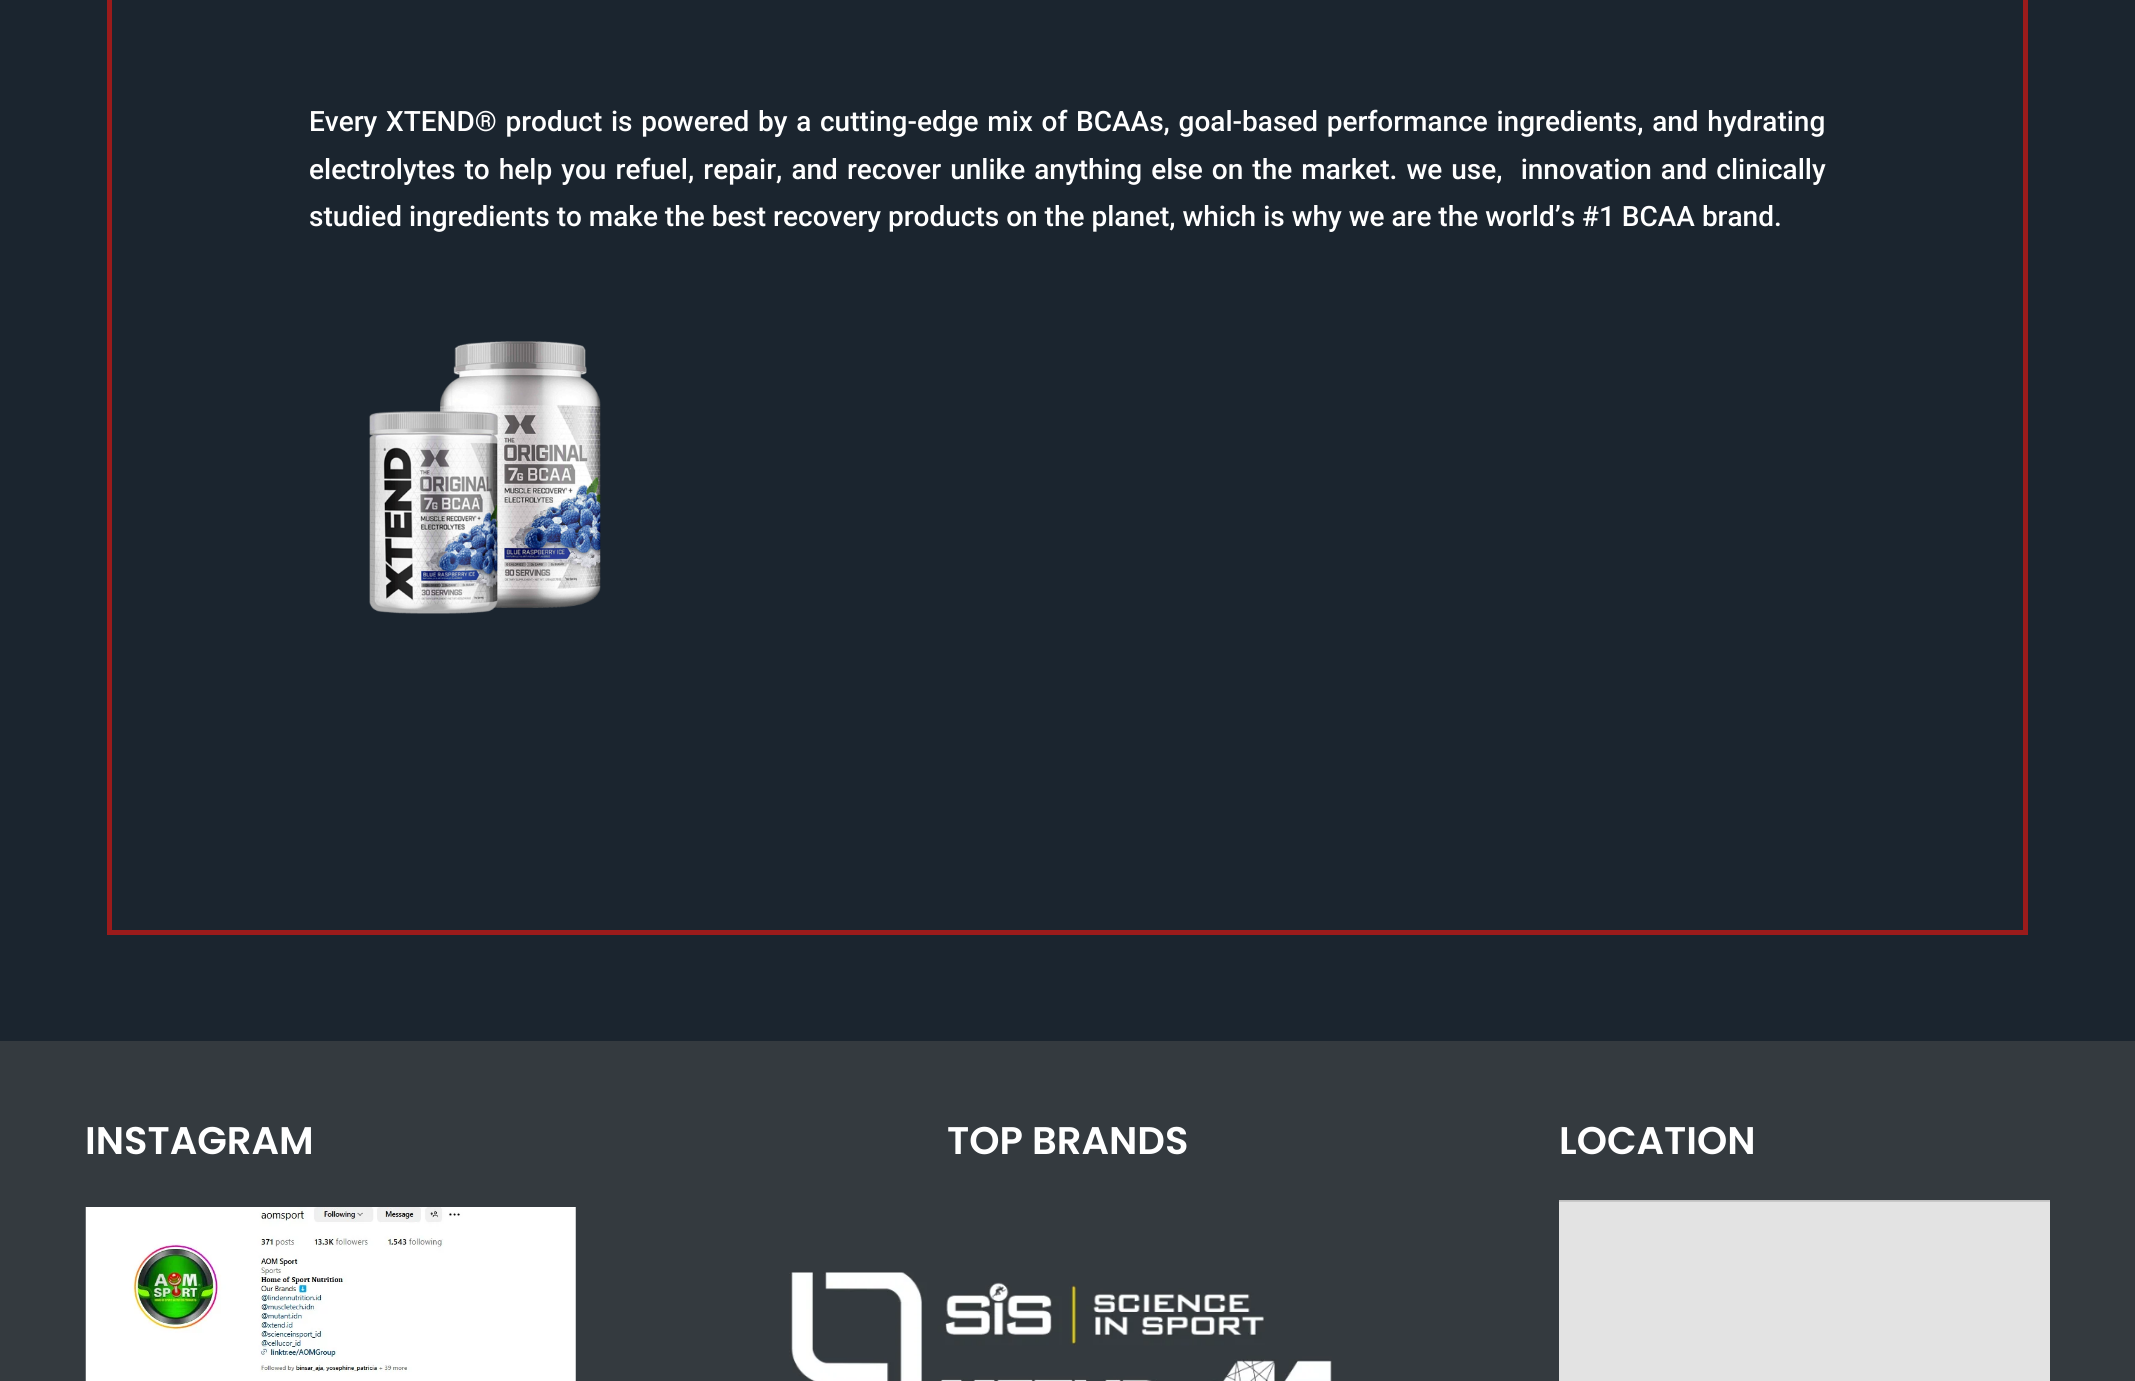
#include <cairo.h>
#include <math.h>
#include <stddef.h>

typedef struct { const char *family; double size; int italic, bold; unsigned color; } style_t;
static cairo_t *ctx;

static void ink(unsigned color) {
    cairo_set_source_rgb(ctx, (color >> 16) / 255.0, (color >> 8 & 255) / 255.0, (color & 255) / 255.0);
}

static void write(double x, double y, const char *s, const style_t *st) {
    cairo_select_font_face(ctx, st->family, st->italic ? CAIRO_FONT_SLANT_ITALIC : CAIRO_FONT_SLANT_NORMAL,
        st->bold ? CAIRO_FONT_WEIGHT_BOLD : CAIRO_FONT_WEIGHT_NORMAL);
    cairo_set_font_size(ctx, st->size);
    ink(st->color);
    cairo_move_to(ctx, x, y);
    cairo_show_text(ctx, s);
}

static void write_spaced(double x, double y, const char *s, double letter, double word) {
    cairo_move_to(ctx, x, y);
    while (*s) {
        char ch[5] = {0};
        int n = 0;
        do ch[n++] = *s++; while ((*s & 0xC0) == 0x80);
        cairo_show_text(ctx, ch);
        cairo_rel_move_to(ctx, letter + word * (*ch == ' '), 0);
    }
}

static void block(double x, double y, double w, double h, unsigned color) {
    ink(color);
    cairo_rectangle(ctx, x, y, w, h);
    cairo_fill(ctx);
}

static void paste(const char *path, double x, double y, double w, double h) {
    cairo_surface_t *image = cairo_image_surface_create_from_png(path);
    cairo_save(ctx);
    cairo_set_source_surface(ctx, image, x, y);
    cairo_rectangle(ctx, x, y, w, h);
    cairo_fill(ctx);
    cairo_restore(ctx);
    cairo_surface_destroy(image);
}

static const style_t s1 = {"Roboto Medium", 28, 0, 0, 0xffffff};
static const style_t s2 = {"Poppins SemiBold", 38.5, 0, 0, 0xffffff};

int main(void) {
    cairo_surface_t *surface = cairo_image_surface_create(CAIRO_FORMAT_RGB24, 2135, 1381);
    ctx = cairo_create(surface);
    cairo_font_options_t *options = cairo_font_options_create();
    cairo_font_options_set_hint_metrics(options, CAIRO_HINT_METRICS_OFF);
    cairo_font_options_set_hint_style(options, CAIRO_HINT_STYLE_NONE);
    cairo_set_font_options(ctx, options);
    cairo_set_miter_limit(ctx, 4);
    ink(0x1b252f);
    cairo_paint(ctx);
    cairo_rectangle(ctx, 109.5, -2.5, 1916, 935);
    ink(0x9b1b1b);
    cairo_set_line_width(ctx, 5);
    cairo_stroke(ctx);
    cairo_select_font_face(ctx, "Roboto Medium", CAIRO_FONT_SLANT_NORMAL, CAIRO_FONT_WEIGHT_NORMAL);
    cairo_set_font_size(ctx, 28);
    ink(0xffffff);
    write_spaced(309, 131, "Every XTEND® product is powered by a cutting-edge mix of BCAAs, goal-based performance ingredients, and hydrating", 0, 1.75);
    write_spaced(309, 179, "electrolytes to help you refuel, repair, and recover unlike anything else on the market. we use,  innovation and clinically", 0, 2.1);
    write(309, 226, "studied ingredients to make the best recovery products on the planet, which is why we are the world’s #1 BCAA brand.", &s1);
    paste("pic1.png", 369, 341, 232, 273);
    block(0, 1041, 2135, 340, 0x343a3f);
    write(85, 1154, "INSTAGRAM", &s2);
    paste("pic2.png", 85, 1207, 491, 174);
    write(947, 1154, "TOP BRANDS", &s2);
    paste("pic3.png", 789, 1272, 544, 109);
    write(1559, 1154, "LOCATION", &s2);
    paste("pic4.png", 1559, 1200, 491, 181);
    cairo_surface_write_to_png(surface, "screenshot.png");
    cairo_font_options_destroy(options);
    cairo_destroy(ctx);
    cairo_surface_destroy(surface);
    return 0;
}
